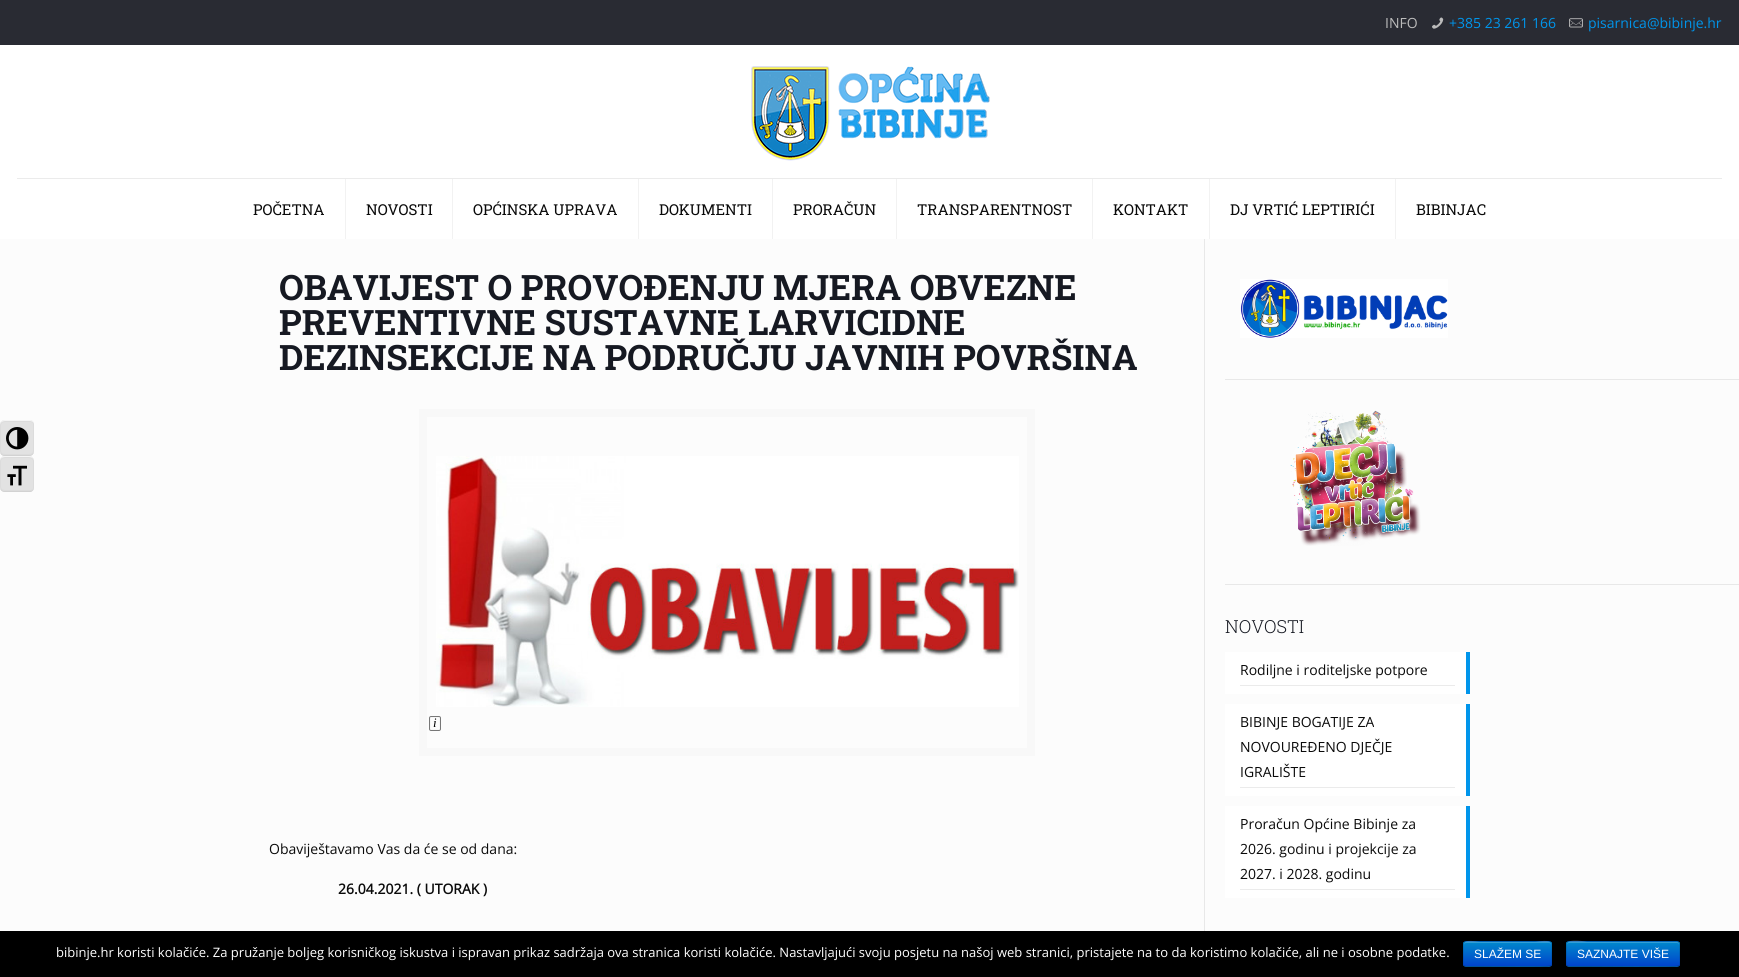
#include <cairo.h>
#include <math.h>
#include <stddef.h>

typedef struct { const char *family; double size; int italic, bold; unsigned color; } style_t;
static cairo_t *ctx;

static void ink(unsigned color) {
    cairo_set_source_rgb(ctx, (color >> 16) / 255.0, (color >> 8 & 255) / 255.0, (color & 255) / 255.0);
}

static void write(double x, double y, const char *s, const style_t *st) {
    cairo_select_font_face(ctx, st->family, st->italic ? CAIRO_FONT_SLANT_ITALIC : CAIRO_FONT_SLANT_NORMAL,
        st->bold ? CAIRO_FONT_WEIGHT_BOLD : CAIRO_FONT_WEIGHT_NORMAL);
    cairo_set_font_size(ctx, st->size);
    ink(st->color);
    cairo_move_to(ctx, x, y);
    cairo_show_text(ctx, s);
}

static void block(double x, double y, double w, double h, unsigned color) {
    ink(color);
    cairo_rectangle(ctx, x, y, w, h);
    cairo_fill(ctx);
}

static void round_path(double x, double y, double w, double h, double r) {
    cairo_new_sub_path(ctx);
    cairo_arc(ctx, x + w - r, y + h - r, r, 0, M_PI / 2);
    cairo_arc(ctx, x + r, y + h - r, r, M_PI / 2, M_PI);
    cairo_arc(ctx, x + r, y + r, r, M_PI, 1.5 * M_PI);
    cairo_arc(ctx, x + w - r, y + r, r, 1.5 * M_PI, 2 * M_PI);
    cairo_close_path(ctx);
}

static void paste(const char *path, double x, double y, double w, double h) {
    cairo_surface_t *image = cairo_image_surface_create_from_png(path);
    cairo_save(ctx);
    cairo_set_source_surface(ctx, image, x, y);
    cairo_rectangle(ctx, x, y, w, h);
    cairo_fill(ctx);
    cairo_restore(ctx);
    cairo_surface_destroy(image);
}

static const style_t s1 = {"Open Sans", 14, 0, 0, 0xbbbbbb};
static const style_t s2 = {"Open Sans", 14, 0, 0, 0x0095eb};
static const style_t s3 = {"Roboto Slab", 15, 0, 0, 0x0a0a0a};
static const style_t s4 = {"Roboto Slab", 35, 0, 1, 0x161922};
static const style_t s5 = {"Liberation Serif", 13, 1, 0, 0x000000};
static const style_t s6 = {"Open Sans", 14, 0, 0, 0x0a0a0a};
static const style_t s7 = {"Open Sans", 14, 0, 1, 0x0a0a0a};
static const style_t s8 = {"Roboto Slab Light", 18, 0, 0, 0x161922};
static const style_t s9 = {"Open Sans", 13, 0, 0, 0xffffff};
static const style_t s10 = {"Liberation Sans", 12, 0, 0, 0xffffff};

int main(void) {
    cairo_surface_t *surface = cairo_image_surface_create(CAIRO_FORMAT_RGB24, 1739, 977);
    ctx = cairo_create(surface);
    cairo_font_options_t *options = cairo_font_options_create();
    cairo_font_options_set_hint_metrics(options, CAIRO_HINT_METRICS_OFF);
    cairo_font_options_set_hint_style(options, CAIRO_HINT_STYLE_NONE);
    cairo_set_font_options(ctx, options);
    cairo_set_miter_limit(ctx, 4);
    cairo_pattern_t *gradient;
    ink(0xfcfcfc);
    cairo_paint(ctx);
    block(0, 45, 1739, 194, 0xffffff);
    block(0, 0, 1739, 45, 0x292b33);
    write(1385, 28, "INFO", &s1);
    paste("pic1.png", 1432, 17, 12, 12);
    write(1449, 28, "+385 23 261 166", &s2);
    paste("pic2.png", 1569, 18, 14, 10);
    write(1588, 28, "pisarnica@bibinje.hr", &s2);
    ink(0xe2e2e2);
    cairo_new_path(ctx);
    cairo_move_to(ctx, 5, 420);
    cairo_line_to(ctx, 30, 420);
    cairo_curve_to(ctx, 32, 420, 34, 422, 34, 424);
    cairo_line_to(ctx, 34, 451);
    cairo_curve_to(ctx, 34, 454, 32, 456, 29, 456);
    cairo_line_to(ctx, 5, 456);
    cairo_curve_to(ctx, 2, 456, 0, 454, 0, 451);
    cairo_line_to(ctx, 0, 425);
    cairo_curve_to(ctx, 0, 422, 2, 420, 5, 420);
    cairo_close_path(ctx);
    cairo_fill(ctx);
    cairo_new_path(ctx);
    cairo_move_to(ctx, 5, 421.5);
    cairo_line_to(ctx, 30, 421.5);
    cairo_curve_to(ctx, 32, 421.5, 33.5, 422.5, 33.5, 424);
    cairo_line_to(ctx, 33.5, 451);
    cairo_curve_to(ctx, 33.5, 453, 31.5, 454.5, 29, 454.5);
    cairo_line_to(ctx, 5, 454.5);
    cairo_curve_to(ctx, 2.5, 454.5, 0.5, 453, 0.5, 451);
    cairo_line_to(ctx, 0.5, 425);
    cairo_curve_to(ctx, 0.5, 423, 2.5, 421.5, 5, 421.5);
    cairo_close_path(ctx);
    cairo_set_source_rgba(ctx, 0, 0, 0, 0.03);
    cairo_set_line_width(ctx, 1);
    cairo_stroke(ctx);
    ink(0xf5f5f5);
    cairo_new_path(ctx);
    cairo_move_to(ctx, 5, 420);
    cairo_curve_to(ctx, 2, 420, 0, 422, 0, 425);
    cairo_curve_to(ctx, 0, 423, 2, 421, 5, 421);
    cairo_line_to(ctx, 30, 421);
    cairo_curve_to(ctx, 32, 421, 34, 422.5, 34, 424);
    cairo_curve_to(ctx, 34, 422, 32, 420, 30, 420);
    cairo_close_path(ctx);
    cairo_fill(ctx);
    ink(0xd2d2d2);
    cairo_new_path(ctx);
    cairo_move_to(ctx, 29, 456);
    cairo_curve_to(ctx, 32, 456, 34, 454, 34, 451);
    cairo_curve_to(ctx, 34, 453, 32, 455, 29, 455);
    cairo_line_to(ctx, 5, 455);
    cairo_curve_to(ctx, 2, 455, 0, 453, 0, 451);
    cairo_curve_to(ctx, 0, 454, 2, 456, 5, 456);
    cairo_close_path(ctx);
    cairo_fill(ctx);
    paste("pic3.png", 6, 427, 23, 23);
    ink(0xe2e2e2);
    cairo_new_path(ctx);
    cairo_move_to(ctx, 5, 456);
    cairo_line_to(ctx, 29, 456);
    cairo_curve_to(ctx, 32, 456, 34, 458, 34, 461);
    cairo_line_to(ctx, 34, 488);
    cairo_curve_to(ctx, 34, 490, 32, 492, 30, 492);
    cairo_line_to(ctx, 5, 492);
    cairo_curve_to(ctx, 2, 492, 0, 490, 0, 487);
    cairo_line_to(ctx, 0, 461);
    cairo_curve_to(ctx, 0, 458, 2, 456, 5, 456);
    cairo_close_path(ctx);
    cairo_fill(ctx);
    cairo_new_path(ctx);
    cairo_move_to(ctx, 5, 457.5);
    cairo_line_to(ctx, 29, 457.5);
    cairo_curve_to(ctx, 31.5, 457.5, 33.5, 459, 33.5, 461);
    cairo_line_to(ctx, 33.5, 488);
    cairo_curve_to(ctx, 33.5, 489.5, 32, 490.5, 30, 490.5);
    cairo_line_to(ctx, 5, 490.5);
    cairo_curve_to(ctx, 2.5, 490.5, 0.5, 489, 0.5, 487);
    cairo_line_to(ctx, 0.5, 461);
    cairo_curve_to(ctx, 0.5, 459, 2.5, 457.5, 5, 457.5);
    cairo_close_path(ctx);
    cairo_set_source_rgba(ctx, 0, 0, 0, 0.03);
    cairo_stroke(ctx);
    ink(0xf5f5f5);
    cairo_new_path(ctx);
    cairo_move_to(ctx, 5, 456);
    cairo_curve_to(ctx, 2, 456, 0, 458, 0, 461);
    cairo_curve_to(ctx, 0, 459, 2, 457, 5, 457);
    cairo_line_to(ctx, 29, 457);
    cairo_curve_to(ctx, 32, 457, 34, 459, 34, 461);
    cairo_curve_to(ctx, 34, 458, 32, 456, 29, 456);
    cairo_close_path(ctx);
    cairo_fill(ctx);
    ink(0xd2d2d2);
    cairo_new_path(ctx);
    cairo_move_to(ctx, 30, 492);
    cairo_curve_to(ctx, 32, 492, 34, 490, 34, 488);
    cairo_curve_to(ctx, 34, 489.5, 32, 491, 30, 491);
    cairo_line_to(ctx, 5, 491);
    cairo_curve_to(ctx, 2, 491, 0, 489, 0, 487);
    cairo_curve_to(ctx, 0, 490, 2, 492, 5, 492);
    cairo_close_path(ctx);
    cairo_fill(ctx);
    paste("pic4.png", 7, 465, 20, 21);
    block(17, 178, 1705, 1, 0xebebeb);
    paste("pic5.png", 751, 66, 239, 95);
    block(345, 179, 1, 60, 0xf2f2f2);
    write(253, 215, "POČETNA", &s3);
    block(452, 179, 1, 60, 0xf2f2f2);
    write(366, 215, "NOVOSTI", &s3);
    block(638, 179, 1, 60, 0xf2f2f2);
    write(473, 215, "OPĆINSKA UPRAVA", &s3);
    block(772, 179, 1, 60, 0xf2f2f2);
    write(659, 215, "DOKUMENTI", &s3);
    block(896, 179, 1, 60, 0xf2f2f2);
    write(793, 215, "PRORAČUN", &s3);
    block(1092, 179, 1, 60, 0xf2f2f2);
    write(917, 215, "TRANSPARENTNOST", &s3);
    block(1209, 179, 1, 60, 0xf2f2f2);
    write(1113, 215, "KONTAKT", &s3);
    block(1395, 179, 1, 60, 0xf2f2f2);
    write(1230, 215, "DJ VRTIĆ LEPTIRIĆI", &s3);
    write(1416, 215, "BIBINJAC", &s3);
    write(279, 300, "OBAVIJEST O PROVOĐENJU MJERA OBVEZNE", &s4);
    write(279, 335, "PREVENTIVNE SUSTAVNE LARVICIDNE", &s4);
    write(279, 370, "DEZINSEKCIJE NA PODRUČJU JAVNIH POVRŠINA", &s4);
    cairo_rectangle(ctx, 423, 413, 608, 339);
    ink(0xf8f8f8);
    cairo_set_line_width(ctx, 8);
    cairo_stroke(ctx);
    paste("pic6.png", 436, 456, 583, 251);
    round_path(430.5, 717.5, 9, 12, 0.5);
    ink(0xf6f6f6);
    cairo_set_line_width(ctx, 1);
    cairo_stroke(ctx);
    round_path(429.5, 716.5, 11, 14, 1.5);
    ink(0x777777);
    cairo_stroke(ctx);
    write(433, 727, "i", &s5);
    write(269, 854, "Obaviještavamo Vas da će se od dana:", &s6);
    write(338, 894, "26.04.2021. ( UTORAK )", &s7);
    block(1204, 239, 1, 692, 0xe8e8e8);
    paste("pic7.png", 1240, 279, 208, 59);
    block(1225, 379, 514, 1, 0xe8e8e8);
    paste("pic8.png", 1290, 410, 131, 136);
    block(1225, 584, 514, 1, 0xe8e8e8);
    write(1225, 633, "NOVOSTI", &s8);
    block(1225, 652, 241, 42, 0xffffff);
    block(1240, 685, 215, 1, 0xebebeb);
    write(1240, 675, "Rodiljne i roditeljske potpore", &s6);
    block(1466, 652, 4, 42, 0x0095eb);
    block(1225, 704, 241, 92, 0xffffff);
    block(1240, 787, 215, 1, 0xebebeb);
    write(1240, 727, "BIBINJE BOGATIJE ZA", &s6);
    write(1240, 752, "NOVOUREĐENO DJEČJE", &s6);
    write(1240, 777, "IGRALIŠTE", &s6);
    block(1466, 704, 4, 92, 0x0095eb);
    block(1225, 806, 241, 92, 0xffffff);
    block(1240, 889, 215, 1, 0xebebeb);
    write(1240, 829, "Proračun Općine Bibinje za", &s6);
    write(1240, 854, "2026. godinu i projekcije za", &s6);
    write(1240, 879, "2027. i 2028. godinu", &s6);
    block(1466, 806, 4, 92, 0x0095eb);
    block(0, 931, 1739, 46, 0x000000);
    write(56, 957, "bibinje.hr koristi kolačiće. Za pružanje boljeg korisničkog iskustva i ispravan prikaz sadržaja ova stranica koristi kolačiće. Nastavljajući svoju posjetu na našoj web stranici, pristajete na to da koristimo kolačiće, ali ne i osobne podatke.", &s9);
    ink(0x006dcc);
    round_path(1463, 941, 89, 26, 3);
    cairo_fill(ctx);
    cairo_save(ctx);
    round_path(1463, 941, 89, 26, 3);
    cairo_clip(ctx);
    gradient = cairo_pattern_create_linear(1508, 942, 1508, 966);
    cairo_pattern_add_color_stop_rgba(gradient, 0, 0, 0.533, 0.8, 1);
    cairo_pattern_add_color_stop_rgba(gradient, 1, 0, 0.267, 0.8, 1);
    cairo_set_source(ctx, gradient);
    cairo_pattern_destroy(gradient);
    cairo_rectangle(ctx, 1463, 942, 89, 24);
    cairo_fill(ctx);
    cairo_restore(ctx);
    cairo_set_source_rgba(ctx, 1, 1, 1, 0.2);
    cairo_new_path(ctx);
    cairo_move_to(ctx, 1466, 943);
    cairo_line_to(ctx, 1549, 943);
    cairo_curve_to(ctx, 1550, 943, 1551, 944, 1551, 945);
    cairo_curve_to(ctx, 1551, 938, 1538, 942, 1535, 942);
    cairo_line_to(ctx, 1480, 942);
    cairo_curve_to(ctx, 1477, 942, 1464, 938, 1464, 945);
    cairo_curve_to(ctx, 1464, 944, 1465, 943, 1466, 943);
    cairo_close_path(ctx);
    cairo_fill(ctx);
    cairo_new_path(ctx);
    cairo_move_to(ctx, 1551, 966);
    cairo_line_to(ctx, 1550.5, 966);
    cairo_curve_to(ctx, 1548.5, 967.5, 1487, 966.5, 1480, 966.5);
    cairo_line_to(ctx, 1466, 966.5);
    cairo_line_to(ctx, 1464, 966);
    cairo_set_source_rgba(ctx, 0, 0, 0, 0.25);
    cairo_stroke(ctx);
    cairo_new_path(ctx);
    cairo_move_to(ctx, 1464, 966);
    cairo_curve_to(ctx, 1462.5, 964, 1463.5, 959.5, 1463.5, 957.5);
    cairo_curve_to(ctx, 1463.5, 938, 1460, 941.5, 1480, 941.5);
    cairo_line_to(ctx, 1535, 941.5);
    cairo_curve_to(ctx, 1555, 941.5, 1551.5, 938, 1551.5, 957.5);
    cairo_curve_to(ctx, 1551.5, 959.5, 1552.5, 964, 1551, 966);
    cairo_set_source_rgba(ctx, 0, 0, 0, 0.1);
    cairo_stroke(ctx);
    write(1474, 958, "SLAŽEM SE", &s10);
    ink(0x006dcc);
    round_path(1566, 941, 114, 26, 3);
    cairo_fill(ctx);
    cairo_save(ctx);
    round_path(1566, 941, 114, 26, 3);
    cairo_clip(ctx);
    gradient = cairo_pattern_create_linear(1623, 942, 1623, 966);
    cairo_pattern_add_color_stop_rgba(gradient, 0, 0, 0.533, 0.8, 1);
    cairo_pattern_add_color_stop_rgba(gradient, 1, 0, 0.267, 0.8, 1);
    cairo_set_source(ctx, gradient);
    cairo_pattern_destroy(gradient);
    cairo_rectangle(ctx, 1566, 942, 114, 24);
    cairo_fill(ctx);
    cairo_restore(ctx);
    cairo_set_source_rgba(ctx, 1, 1, 1, 0.2);
    cairo_new_path(ctx);
    cairo_move_to(ctx, 1569, 943);
    cairo_line_to(ctx, 1677, 943);
    cairo_curve_to(ctx, 1678, 943, 1679, 944, 1679, 945);
    cairo_curve_to(ctx, 1679, 944, 1679, 942, 1677, 942);
    cairo_line_to(ctx, 1587, 942);
    cairo_curve_to(ctx, 1587, 942, 1567, 937, 1567, 945);
    cairo_curve_to(ctx, 1567, 944, 1568, 943, 1569, 943);
    cairo_close_path(ctx);
    cairo_fill(ctx);
    cairo_new_path(ctx);
    cairo_move_to(ctx, 1679, 966);
    cairo_line_to(ctx, 1678.5, 966);
    cairo_curve_to(ctx, 1676.5, 967.5, 1596, 966.5, 1587, 966.5);
    cairo_line_to(ctx, 1569, 966.5);
    cairo_line_to(ctx, 1567, 966);
    cairo_set_source_rgba(ctx, 0, 0, 0, 0.25);
    cairo_stroke(ctx);
    cairo_new_path(ctx);
    cairo_move_to(ctx, 1567, 966);
    cairo_curve_to(ctx, 1565.5, 964, 1566.5, 956.5, 1566.5, 954);
    cairo_line_to(ctx, 1566.5, 947.5);
    cairo_curve_to(ctx, 1566.5, 945.5, 1566, 941.5, 1569, 941.5);
    cairo_line_to(ctx, 1677, 941.5);
    cairo_curve_to(ctx, 1680, 941.5, 1679.5, 945.5, 1679.5, 947.5);
    cairo_line_to(ctx, 1679.5, 954);
    cairo_curve_to(ctx, 1679.5, 956.5, 1680.5, 964, 1679, 966);
    cairo_set_source_rgba(ctx, 0, 0, 0, 0.1);
    cairo_stroke(ctx);
    write(1577, 958, "SAZNAJTE VIŠE", &s10);
    cairo_surface_write_to_png(surface, "screenshot.png");
    cairo_font_options_destroy(options);
    cairo_destroy(ctx);
    cairo_surface_destroy(surface);
    return 0;
}
